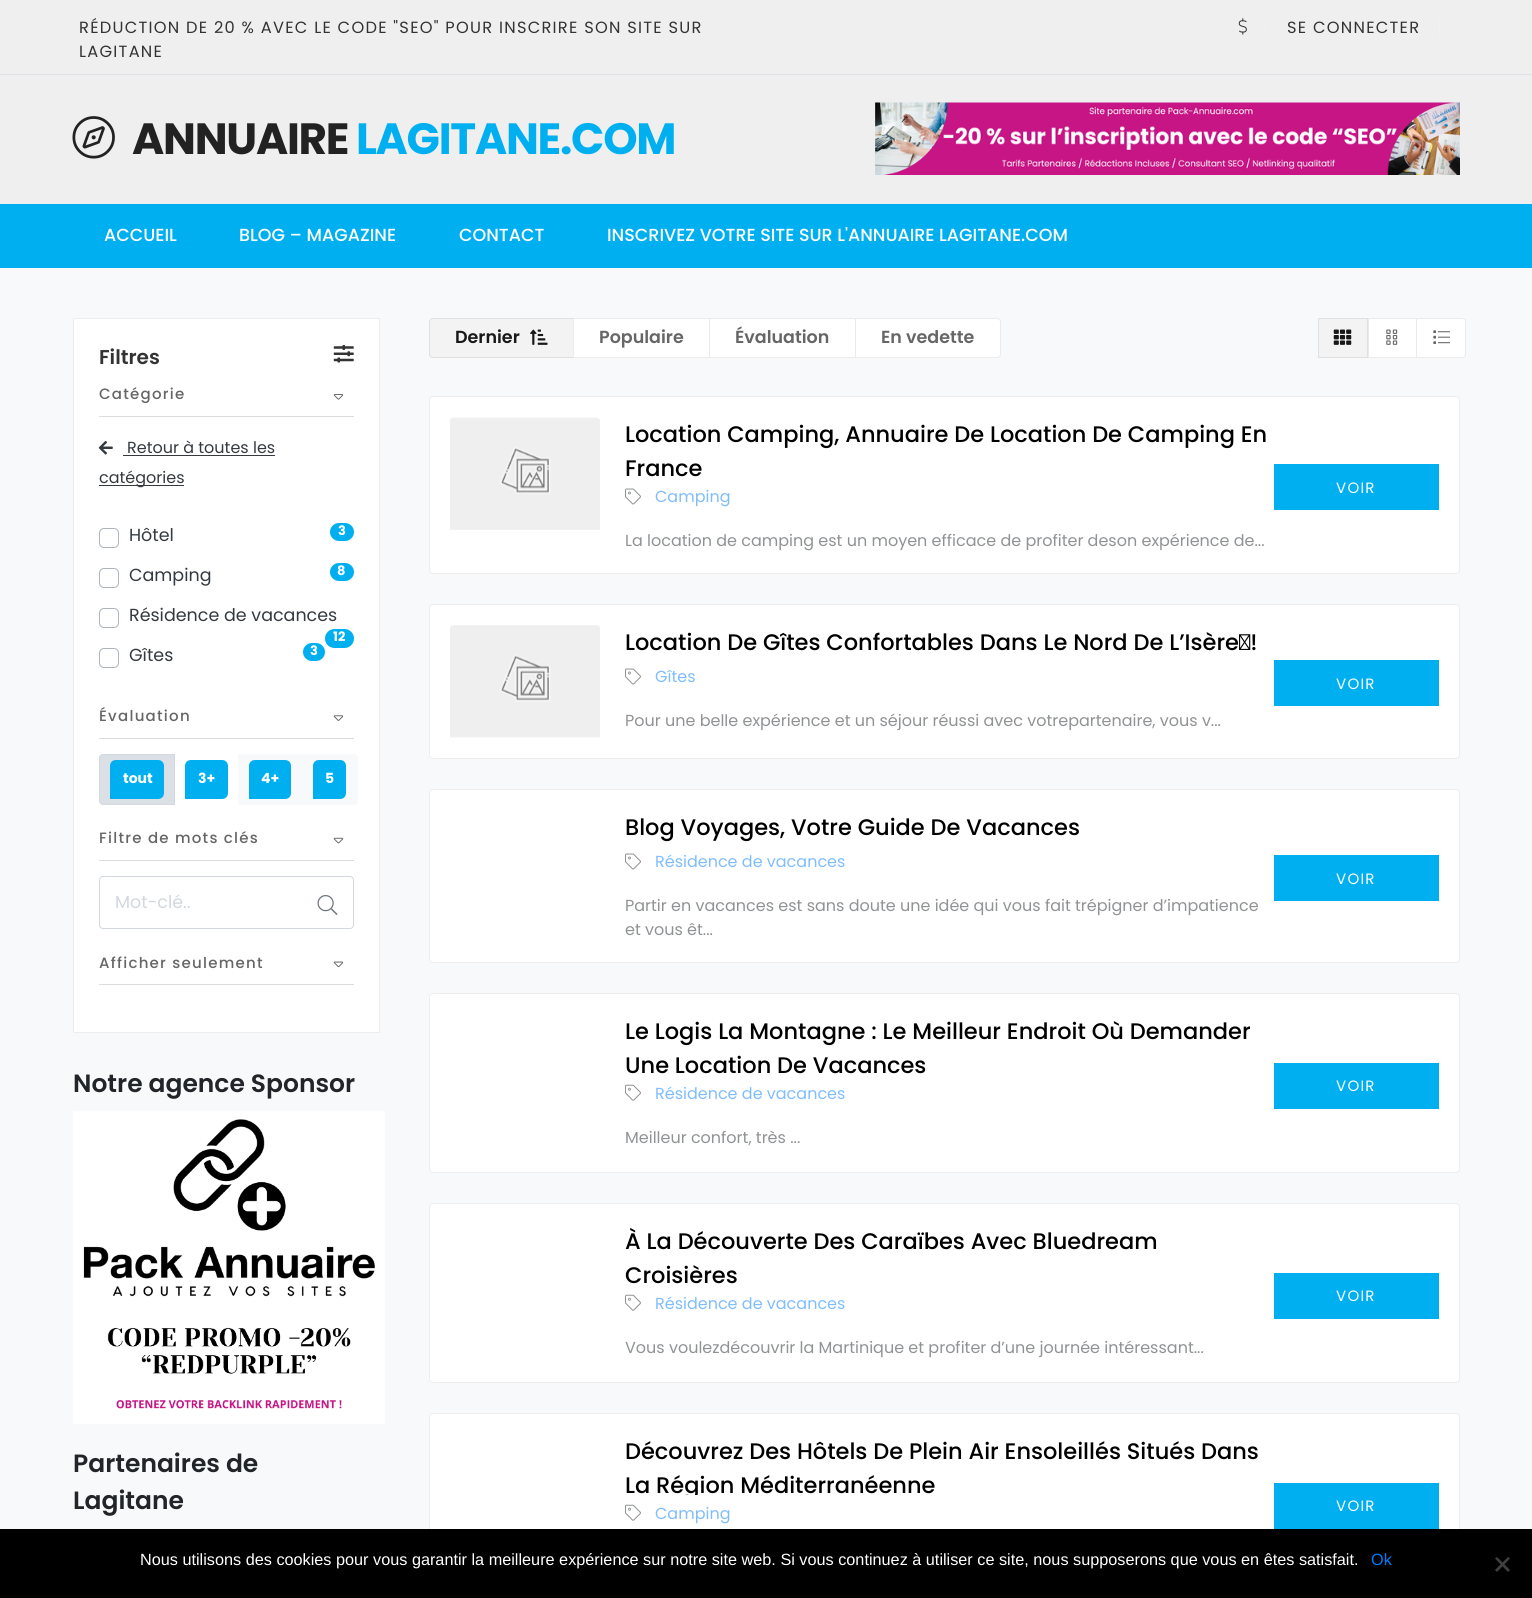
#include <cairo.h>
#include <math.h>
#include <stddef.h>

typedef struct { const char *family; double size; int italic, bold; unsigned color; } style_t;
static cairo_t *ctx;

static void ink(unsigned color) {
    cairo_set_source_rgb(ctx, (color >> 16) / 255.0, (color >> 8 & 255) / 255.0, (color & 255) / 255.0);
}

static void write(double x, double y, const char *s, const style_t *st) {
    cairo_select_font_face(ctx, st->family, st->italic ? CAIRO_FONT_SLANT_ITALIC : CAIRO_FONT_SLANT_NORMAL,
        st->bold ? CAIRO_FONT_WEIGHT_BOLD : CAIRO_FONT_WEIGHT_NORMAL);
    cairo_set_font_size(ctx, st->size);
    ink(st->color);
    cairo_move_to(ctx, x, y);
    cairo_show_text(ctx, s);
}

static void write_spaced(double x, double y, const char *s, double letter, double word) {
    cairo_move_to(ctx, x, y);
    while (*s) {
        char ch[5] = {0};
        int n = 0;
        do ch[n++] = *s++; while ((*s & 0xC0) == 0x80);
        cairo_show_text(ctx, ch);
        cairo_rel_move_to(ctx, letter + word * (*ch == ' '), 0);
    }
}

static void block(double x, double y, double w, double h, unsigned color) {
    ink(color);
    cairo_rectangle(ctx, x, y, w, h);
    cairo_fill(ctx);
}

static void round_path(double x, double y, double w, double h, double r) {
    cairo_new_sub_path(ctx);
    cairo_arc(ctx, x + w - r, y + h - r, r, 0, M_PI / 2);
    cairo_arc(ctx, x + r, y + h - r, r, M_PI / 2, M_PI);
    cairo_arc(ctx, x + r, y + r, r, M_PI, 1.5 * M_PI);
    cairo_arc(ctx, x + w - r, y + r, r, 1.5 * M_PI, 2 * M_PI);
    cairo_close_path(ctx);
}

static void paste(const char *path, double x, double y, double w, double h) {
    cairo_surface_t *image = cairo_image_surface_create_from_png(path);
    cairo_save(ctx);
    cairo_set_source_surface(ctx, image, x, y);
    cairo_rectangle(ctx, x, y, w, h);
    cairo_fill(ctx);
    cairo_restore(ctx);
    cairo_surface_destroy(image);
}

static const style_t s1 = {"Poppins Medium", 17.5, 0, 0, 0xffffff};
static const style_t s2 = {"Poppins SemiBold", 20, 0, 0, 0x333333};
static const style_t s3 = {"Poppins", 16, 0, 0, 0x343a40};
static const style_t s4 = {"Poppins", 17.5, 0, 0, 0x343a40};
static const style_t s5 = {"Poppins", 13, 0, 1, 0xffffff};
static const style_t s6 = {"Poppins", 14, 0, 1, 0xffffff};
static const style_t s7 = {"Poppins", 17.5, 0, 0, 0xd2d8dd};
static const style_t s8 = {"Poppins SemiBold", 25, 0, 0, 0x212529};
static const style_t s9 = {"Poppins SemiBold", 17.5, 0, 0, 0x181818};
static const style_t s10 = {"Poppins SemiBold", 17.5, 0, 0, 0x666666};
static const style_t s11 = {"Poppins Medium", 22.5, 0, 0, 0x000000};
static const style_t s12 = {"Poppins", 16, 0, 0, 0x80bdff};
static const style_t s13 = {"Poppins", 16, 0, 0, 0x909294};
static const style_t s14 = {"Liberation Sans", 16.25, 0, 0, 0xffffff};
static const style_t s15 = {"Liberation Sans", 16.25, 0, 0, 0x007bff};

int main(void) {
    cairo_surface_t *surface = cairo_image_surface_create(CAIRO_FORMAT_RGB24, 1532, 1598);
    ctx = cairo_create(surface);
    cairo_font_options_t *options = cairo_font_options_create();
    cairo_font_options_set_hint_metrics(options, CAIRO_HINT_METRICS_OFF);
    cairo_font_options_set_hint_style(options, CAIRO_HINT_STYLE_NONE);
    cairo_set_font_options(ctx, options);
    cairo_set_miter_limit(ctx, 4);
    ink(0xefefef);
    cairo_paint(ctx);
    block(0, 74, 1532, 1, 0xdee2e6);
    cairo_select_font_face(ctx, "Poppins", CAIRO_FONT_SLANT_NORMAL, CAIRO_FONT_WEIGHT_NORMAL);
    cairo_set_font_size(ctx, 16.25);
    ink(0x333333);
    write_spaced(79, 33, "RÉDUCTION DE 20 % AVEC LE CODE \"SEO\" POUR INSCRIRE SON SITE SUR", 1.25, 0);
    write_spaced(79, 57, "LAGITANE", 1.25, 0);
    paste("pic1.png", 1238, 18, 9, 17);
    block(1265, 20, 1, 15, 0xf2f2f2);
    ink(0x333333);
    write_spaced(1287, 33, "SE CONNECTER", 1.25, 0);
    block(1439, 20, 1, 15, 0xf2f2f2);
    paste("pic2.png", 72, 116, 43, 43);
    cairo_select_font_face(ctx, "Poppins", CAIRO_FONT_SLANT_NORMAL, CAIRO_FONT_WEIGHT_BOLD);
    cairo_set_font_size(ctx, 43.75);
    ink(0x222222);
    write_spaced(132, 154, "ANNUAIRE", -1.25, 0);
    ink(0x00aff0);
    write_spaced(356, 154, "LAGITANE.COM", -1.25, 0);
    paste("pic3.png", 875, 102, 585, 73);
    block(0, 204, 1532, 64, 0x00aff0);
    write(104, 241, "ACCUEIL", &s1);
    write(239, 241, "BLOG – MAGAZINE", &s1);
    write(459, 241, "CONTACT", &s1);
    write(607, 241, "INSCRIVEZ VOTRE SITE SUR L'ANNUAIRE LAGITANE.COM", &s1);
    block(0, 268, 1532, 1261, 0xf8f9fa);
    ink(0xffffff);
    cairo_rectangle(ctx, 73.5, 318.5, 306, 714);
    cairo_fill_preserve(ctx);
    ink(0xededed);
    cairo_set_line_width(ctx, 1);
    cairo_stroke(ctx);
    write(99, 364, "Filtres", &s2);
    paste("pic4.png", 333, 345, 21, 18);
    block(99, 416, 255, 1, 0xdddddd);
    cairo_select_font_face(ctx, "Poppins Medium", CAIRO_FONT_SLANT_NORMAL, CAIRO_FONT_WEIGHT_NORMAL);
    cairo_set_font_size(ctx, 15);
    ink(0x666666);
    write_spaced(99, 399, "Catégorie", 1.25, 0);
    paste("pic5.png", 333, 394, 11, 6);
    paste("pic6.png", 98, 441, 15, 14);
    write(127, 453, "Retour à toutes les", &s3);
    block(123, 455, 152, 1, 0x343a40);
    block(99, 485, 85, 1, 0x343a40);
    write(99, 483, "catégories", &s3);
    round_path(99.5, 528.5, 19, 19, 4.5);
    ink(0xadb5bd);
    cairo_stroke(ctx);
    write(129, 541, "Hôtel", &s4);
    ink(0x00aff0);
    round_path(330, 523, 24, 18, 9);
    cairo_fill(ctx);
    write(338, 535, "3", &s5);
    round_path(99.5, 568.5, 19, 19, 4.5);
    ink(0xadb5bd);
    cairo_stroke(ctx);
    write(129, 581, "Camping", &s4);
    ink(0x00aff0);
    round_path(330, 563, 24, 18, 9);
    cairo_fill(ctx);
    write(337, 575, "8", &s5);
    round_path(99.5, 608.5, 19, 19, 4.5);
    ink(0xadb5bd);
    cairo_stroke(ctx);
    write(129, 621, "Résidence de vacances", &s4);
    ink(0x00aff0);
    round_path(325, 629, 29, 19, 9.5);
    cairo_fill(ctx);
    write(333, 641, "12", &s5);
    round_path(99.5, 648.5, 19, 19, 4.5);
    ink(0xadb5bd);
    cairo_stroke(ctx);
    write(129, 661, "Gîtes", &s4);
    ink(0x00aff0);
    round_path(303, 643, 22, 18, 9);
    cairo_fill(ctx);
    write(310, 655, "3", &s5);
    block(99, 738, 255, 1, 0xdddddd);
    cairo_select_font_face(ctx, "Poppins Medium", CAIRO_FONT_SLANT_NORMAL, CAIRO_FONT_WEIGHT_NORMAL);
    cairo_set_font_size(ctx, 15);
    ink(0x666666);
    write_spaced(99, 721, "Évaluation", 1.25, 0);
    paste("pic7.png", 333, 715, 11, 6);
    ink(0xdae0e5);
    cairo_new_path(ctx);
    cairo_move_to(ctx, 103, 754.5);
    cairo_line_to(ctx, 174.5, 754.5);
    cairo_line_to(ctx, 174.5, 804.5);
    cairo_line_to(ctx, 103, 804.5);
    cairo_curve_to(ctx, 101, 804.5, 99.5, 803, 99.5, 801);
    cairo_line_to(ctx, 99.5, 758);
    cairo_curve_to(ctx, 99.5, 756, 101, 754.5, 103, 754.5);
    cairo_close_path(ctx);
    cairo_fill_preserve(ctx);
    ink(0xd3d9df);
    cairo_stroke(ctx);
    ink(0x00aff0);
    cairo_new_path(ctx);
    cairo_move_to(ctx, 116, 760);
    cairo_line_to(ctx, 158, 760);
    cairo_curve_to(ctx, 161.5, 760, 164, 762.5, 164, 766);
    cairo_line_to(ctx, 164, 793);
    cairo_curve_to(ctx, 164, 796.5, 161.5, 799, 158, 799);
    cairo_line_to(ctx, 110, 799);
    cairo_line_to(ctx, 110, 766);
    cairo_curve_to(ctx, 110, 762.5, 112.5, 760, 116, 760);
    cairo_close_path(ctx);
    cairo_fill(ctx);
    write(123, 783, "tout", &s6);
    ink(0x00aff0);
    cairo_new_path(ctx);
    cairo_move_to(ctx, 191, 760);
    cairo_line_to(ctx, 222, 760);
    cairo_curve_to(ctx, 225.5, 760, 228, 762.5, 228, 766);
    cairo_line_to(ctx, 228, 793);
    cairo_curve_to(ctx, 228, 796.5, 225.5, 799, 222, 799);
    cairo_line_to(ctx, 185, 799);
    cairo_line_to(ctx, 185, 766);
    cairo_curve_to(ctx, 185, 762.5, 187.5, 760, 191, 760);
    cairo_close_path(ctx);
    cairo_fill(ctx);
    write(198, 783, "3+", &s6);
    block(238, 754, 63, 51, 0xf8f9fa);
    ink(0x00aff0);
    cairo_new_path(ctx);
    cairo_move_to(ctx, 255, 760);
    cairo_line_to(ctx, 285, 760);
    cairo_curve_to(ctx, 288.5, 760, 291, 762.5, 291, 766);
    cairo_line_to(ctx, 291, 793);
    cairo_curve_to(ctx, 291, 796.5, 288.5, 799, 285, 799);
    cairo_line_to(ctx, 249, 799);
    cairo_line_to(ctx, 249, 766);
    cairo_curve_to(ctx, 249, 762.5, 251.5, 760, 255, 760);
    cairo_close_path(ctx);
    cairo_fill(ctx);
    write(261, 783, "4+", &s6);
    ink(0xf8f9fa);
    cairo_new_path(ctx);
    cairo_move_to(ctx, 301, 754);
    cairo_line_to(ctx, 354, 754);
    cairo_curve_to(ctx, 356, 754, 358, 756, 358, 758);
    cairo_line_to(ctx, 358, 801);
    cairo_curve_to(ctx, 358, 803, 356, 805, 354, 805);
    cairo_line_to(ctx, 301, 805);
    cairo_close_path(ctx);
    cairo_fill(ctx);
    ink(0x00aff0);
    cairo_new_path(ctx);
    cairo_move_to(ctx, 319, 760);
    cairo_line_to(ctx, 340, 760);
    cairo_curve_to(ctx, 343.5, 760, 346, 762.5, 346, 766);
    cairo_line_to(ctx, 346, 793);
    cairo_curve_to(ctx, 346, 796.5, 343.5, 799, 340, 799);
    cairo_line_to(ctx, 313, 799);
    cairo_line_to(ctx, 313, 766);
    cairo_curve_to(ctx, 313, 762.5, 315.5, 760, 319, 760);
    cairo_close_path(ctx);
    cairo_fill(ctx);
    write(325, 783, "5", &s6);
    block(99, 860, 255, 1, 0xdddddd);
    cairo_select_font_face(ctx, "Poppins Medium", CAIRO_FONT_SLANT_NORMAL, CAIRO_FONT_WEIGHT_NORMAL);
    cairo_set_font_size(ctx, 15);
    ink(0x666666);
    write_spaced(99, 843, "Filtre de mots clés", 1.25, 0);
    paste("pic8.png", 333, 837, 11, 7);
    round_path(99.5, 876.5, 254, 52, 3.5);
    ink(0xd2d8dd);
    cairo_stroke(ctx);
    write(115, 908, "Mot-clé..", &s7);
    paste("pic9.png", 317, 895, 21, 20);
    block(99, 984, 255, 1, 0xdddddd);
    cairo_select_font_face(ctx, "Poppins Medium", CAIRO_FONT_SLANT_NORMAL, CAIRO_FONT_WEIGHT_NORMAL);
    cairo_set_font_size(ctx, 15);
    ink(0x666666);
    write_spaced(99, 968, "Afficher seulement", 1.25, 0);
    paste("pic10.png", 333, 961, 11, 7);
    write(73, 1092, "Notre agence Sponsor", &s8);
    paste("pic11.png", 73, 1111, 312, 313);
    write(73, 1472, "Partenaires de", &s8);
    write(73, 1509, "Lagitane", &s8);
    ink(0xf3f3f3);
    cairo_new_path(ctx);
    cairo_move_to(ctx, 433, 318.5);
    cairo_line_to(ctx, 573.5, 318.5);
    cairo_line_to(ctx, 573.5, 357.5);
    cairo_line_to(ctx, 433, 357.5);
    cairo_curve_to(ctx, 431, 357.5, 429.5, 356, 429.5, 354);
    cairo_line_to(ctx, 429.5, 322);
    cairo_curve_to(ctx, 429.5, 320, 431, 318.5, 433, 318.5);
    cairo_close_path(ctx);
    cairo_fill_preserve(ctx);
    ink(0xe0e0e0);
    cairo_stroke(ctx);
    write(455, 343, "Dernier", &s9);
    paste("pic12.png", 530, 329, 18, 16);
    ink(0xffffff);
    cairo_rectangle(ctx, 573.5, 318.5, 136, 39);
    cairo_fill_preserve(ctx);
    ink(0xebebeb);
    cairo_stroke(ctx);
    write(599, 343, "Populaire", &s10);
    ink(0xffffff);
    cairo_rectangle(ctx, 709.5, 318.5, 146, 39);
    cairo_fill_preserve(ctx);
    ink(0xebebeb);
    cairo_stroke(ctx);
    write(735, 343, "Évaluation", &s10);
    ink(0xffffff);
    cairo_new_path(ctx);
    cairo_move_to(ctx, 855.5, 318.5);
    cairo_line_to(ctx, 997, 318.5);
    cairo_curve_to(ctx, 999, 318.5, 1000.5, 320, 1000.5, 322);
    cairo_line_to(ctx, 1000.5, 354);
    cairo_curve_to(ctx, 1000.5, 356, 999, 357.5, 997, 357.5);
    cairo_line_to(ctx, 855.5, 357.5);
    cairo_close_path(ctx);
    cairo_fill_preserve(ctx);
    ink(0xebebeb);
    cairo_stroke(ctx);
    write(881, 343, "En vedette", &s10);
    ink(0xf3f3f3);
    cairo_rectangle(ctx, 1318.5, 318.5, 49, 39);
    cairo_fill_preserve(ctx);
    ink(0xe0e0e0);
    cairo_stroke(ctx);
    paste("pic13.png", 1333, 329, 19, 16);
    block(1369, 319, 47, 38, 0xffffff);
    cairo_rectangle(ctx, 1368.5, 318.5, 49, 39);
    ink(0xebebeb);
    cairo_stroke(ctx);
    paste("pic14.png", 1386, 329, 12, 16);
    ink(0xffffff);
    cairo_new_path(ctx);
    cairo_move_to(ctx, 1416.5, 318.5);
    cairo_line_to(ctx, 1462, 318.5);
    cairo_curve_to(ctx, 1464, 318.5, 1465.5, 320, 1465.5, 322);
    cairo_line_to(ctx, 1465.5, 354);
    cairo_curve_to(ctx, 1465.5, 356, 1464, 357.5, 1462, 357.5);
    cairo_line_to(ctx, 1416.5, 357.5);
    cairo_close_path(ctx);
    cairo_fill_preserve(ctx);
    ink(0xebebeb);
    cairo_stroke(ctx);
    paste("pic15.png", 1433, 330, 17, 14);
    ink(0xffffff);
    round_path(429.5, 396.5, 1030, 177, 3.5);
    cairo_fill_preserve(ctx);
    ink(0xededed);
    cairo_stroke(ctx);
    paste("pic16.png", 450, 417, 150, 113);
    write(625, 442, "Location Camping, Annuaire De Location De Camping En", &s11);
    write(625, 476, "France", &s11);
    paste("pic17.png", 625, 488, 16, 17);
    write(655, 502, "Camping", &s12);
    write(625, 546, "La location de camping est un moyen efficace de profiter deson expérience de...", &s13);
    block(1274, 464, 165, 46, 0x00aff0);
    cairo_set_font_size(ctx, 15);
    ink(0xffffff);
    write_spaced(1336, 493, "VOIR", 1.25, 0);
    round_path(429.5, 604.5, 1030, 154, 3.5);
    cairo_fill_preserve(ctx);
    ink(0xededed);
    cairo_stroke(ctx);
    paste("pic18.png", 450, 625, 150, 113);
    write(625, 650, "Location De Gîtes Confortables Dans Le Nord De L’Isère !", &s11);
    paste("pic17.png", 625, 668, 16, 17);
    write(655, 682, "Gîtes", &s12);
    write(625, 726, "Pour une belle expérience et un séjour réussi avec votrepartenaire, vous v...", &s13);
    block(1274, 660, 165, 46, 0x00aff0);
    cairo_set_font_size(ctx, 15);
    ink(0xffffff);
    write_spaced(1336, 689, "VOIR", 1.25, 0);
    round_path(429.5, 789.5, 1030, 173, 3.5);
    cairo_fill_preserve(ctx);
    ink(0xededed);
    cairo_stroke(ctx);
    write(625, 835, "Blog Voyages, Votre Guide De Vacances", &s11);
    paste("pic17.png", 625, 853, 16, 17);
    write(655, 867, "Résidence de vacances", &s12);
    write(625, 911, "Partir en vacances est sans doute une idée qui vous fait trépigner d’impatience", &s13);
    write(625, 935, "et vous êt...", &s13);
    block(1274, 855, 165, 46, 0x00aff0);
    cairo_set_font_size(ctx, 15);
    ink(0xffffff);
    write_spaced(1336, 884, "VOIR", 1.25, 0);
    round_path(429.5, 993.5, 1030, 179, 3.5);
    cairo_fill_preserve(ctx);
    ink(0xededed);
    cairo_stroke(ctx);
    write(625, 1039, "Le Logis La Montagne : Le Meilleur Endroit Où Demander", &s11);
    write(625, 1073, "Une Location De Vacances", &s11);
    paste("pic19.png", 625, 1084, 16, 17);
    write(655, 1099, "Résidence de vacances", &s12);
    write(625, 1143, "Meilleur confort, très ...", &s13);
    block(1274, 1063, 165, 46, 0x00aff0);
    cairo_set_font_size(ctx, 15);
    ink(0xffffff);
    write_spaced(1336, 1091, "VOIR", 1.25, 0);
    round_path(429.5, 1203.5, 1030, 179, 3.5);
    cairo_fill_preserve(ctx);
    ink(0xededed);
    cairo_stroke(ctx);
    write(625, 1249, "À La Découverte Des Caraïbes Avec Bluedream", &s11);
    write(625, 1283, "Croisières", &s11);
    paste("pic19.png", 625, 1294, 16, 17);
    write(655, 1309, "Résidence de vacances", &s12);
    write(625, 1353, "Vous voulezdécouvrir la Martinique et profiter d’une journée intéressant...", &s13);
    block(1274, 1273, 165, 46, 0x00aff0);
    cairo_set_font_size(ctx, 15);
    ink(0xffffff);
    write_spaced(1336, 1301, "VOIR", 1.25, 0);
    round_path(429.5, 1413.5, 1030, 179, 3.5);
    cairo_fill_preserve(ctx);
    ink(0xededed);
    cairo_stroke(ctx);
    write(625, 1459, "Découvrez Des Hôtels De Plein Air Ensoleillés Situés Dans", &s11);
    cairo_save(ctx);
    cairo_rectangle(ctx, 625, 1434, 649, 61);
    cairo_clip(ctx);
    write(625, 1493, "La Région Méditerranéenne", &s11);
    cairo_restore(ctx);
    paste("pic19.png", 625, 1504, 16, 17);
    write(655, 1519, "Camping", &s12);
    block(1274, 1483, 165, 46, 0x00aff0);
    cairo_set_font_size(ctx, 15);
    ink(0xffffff);
    write_spaced(1336, 1511, "VOIR", 1.25, 0);
    block(0, 1529, 1532, 69, 0x000000);
    write(140, 1565, "Nous utilisons des cookies pour vous garantir la meilleure expérience sur notre site web. Si vous continuez à utiliser ce site, nous supposerons que vous en êtes satisfait.", &s14);
    write(1371, 1565, "Ok", &s15);
    ink(0x404040);
    cairo_new_path(ctx);
    cairo_move_to(ctx, 1508, 1557);
    cairo_line_to(ctx, 1510, 1558.5);
    cairo_line_to(ctx, 1497, 1572);
    cairo_line_to(ctx, 1495, 1570);
    cairo_close_path(ctx);
    cairo_fill(ctx);
    cairo_new_path(ctx);
    cairo_move_to(ctx, 1495, 1558.5);
    cairo_line_to(ctx, 1497, 1557);
    cairo_line_to(ctx, 1510, 1570);
    cairo_line_to(ctx, 1508, 1572);
    cairo_close_path(ctx);
    cairo_fill(ctx);
    cairo_surface_write_to_png(surface, "screenshot.png");
    cairo_font_options_destroy(options);
    cairo_destroy(ctx);
    cairo_surface_destroy(surface);
    return 0;
}
